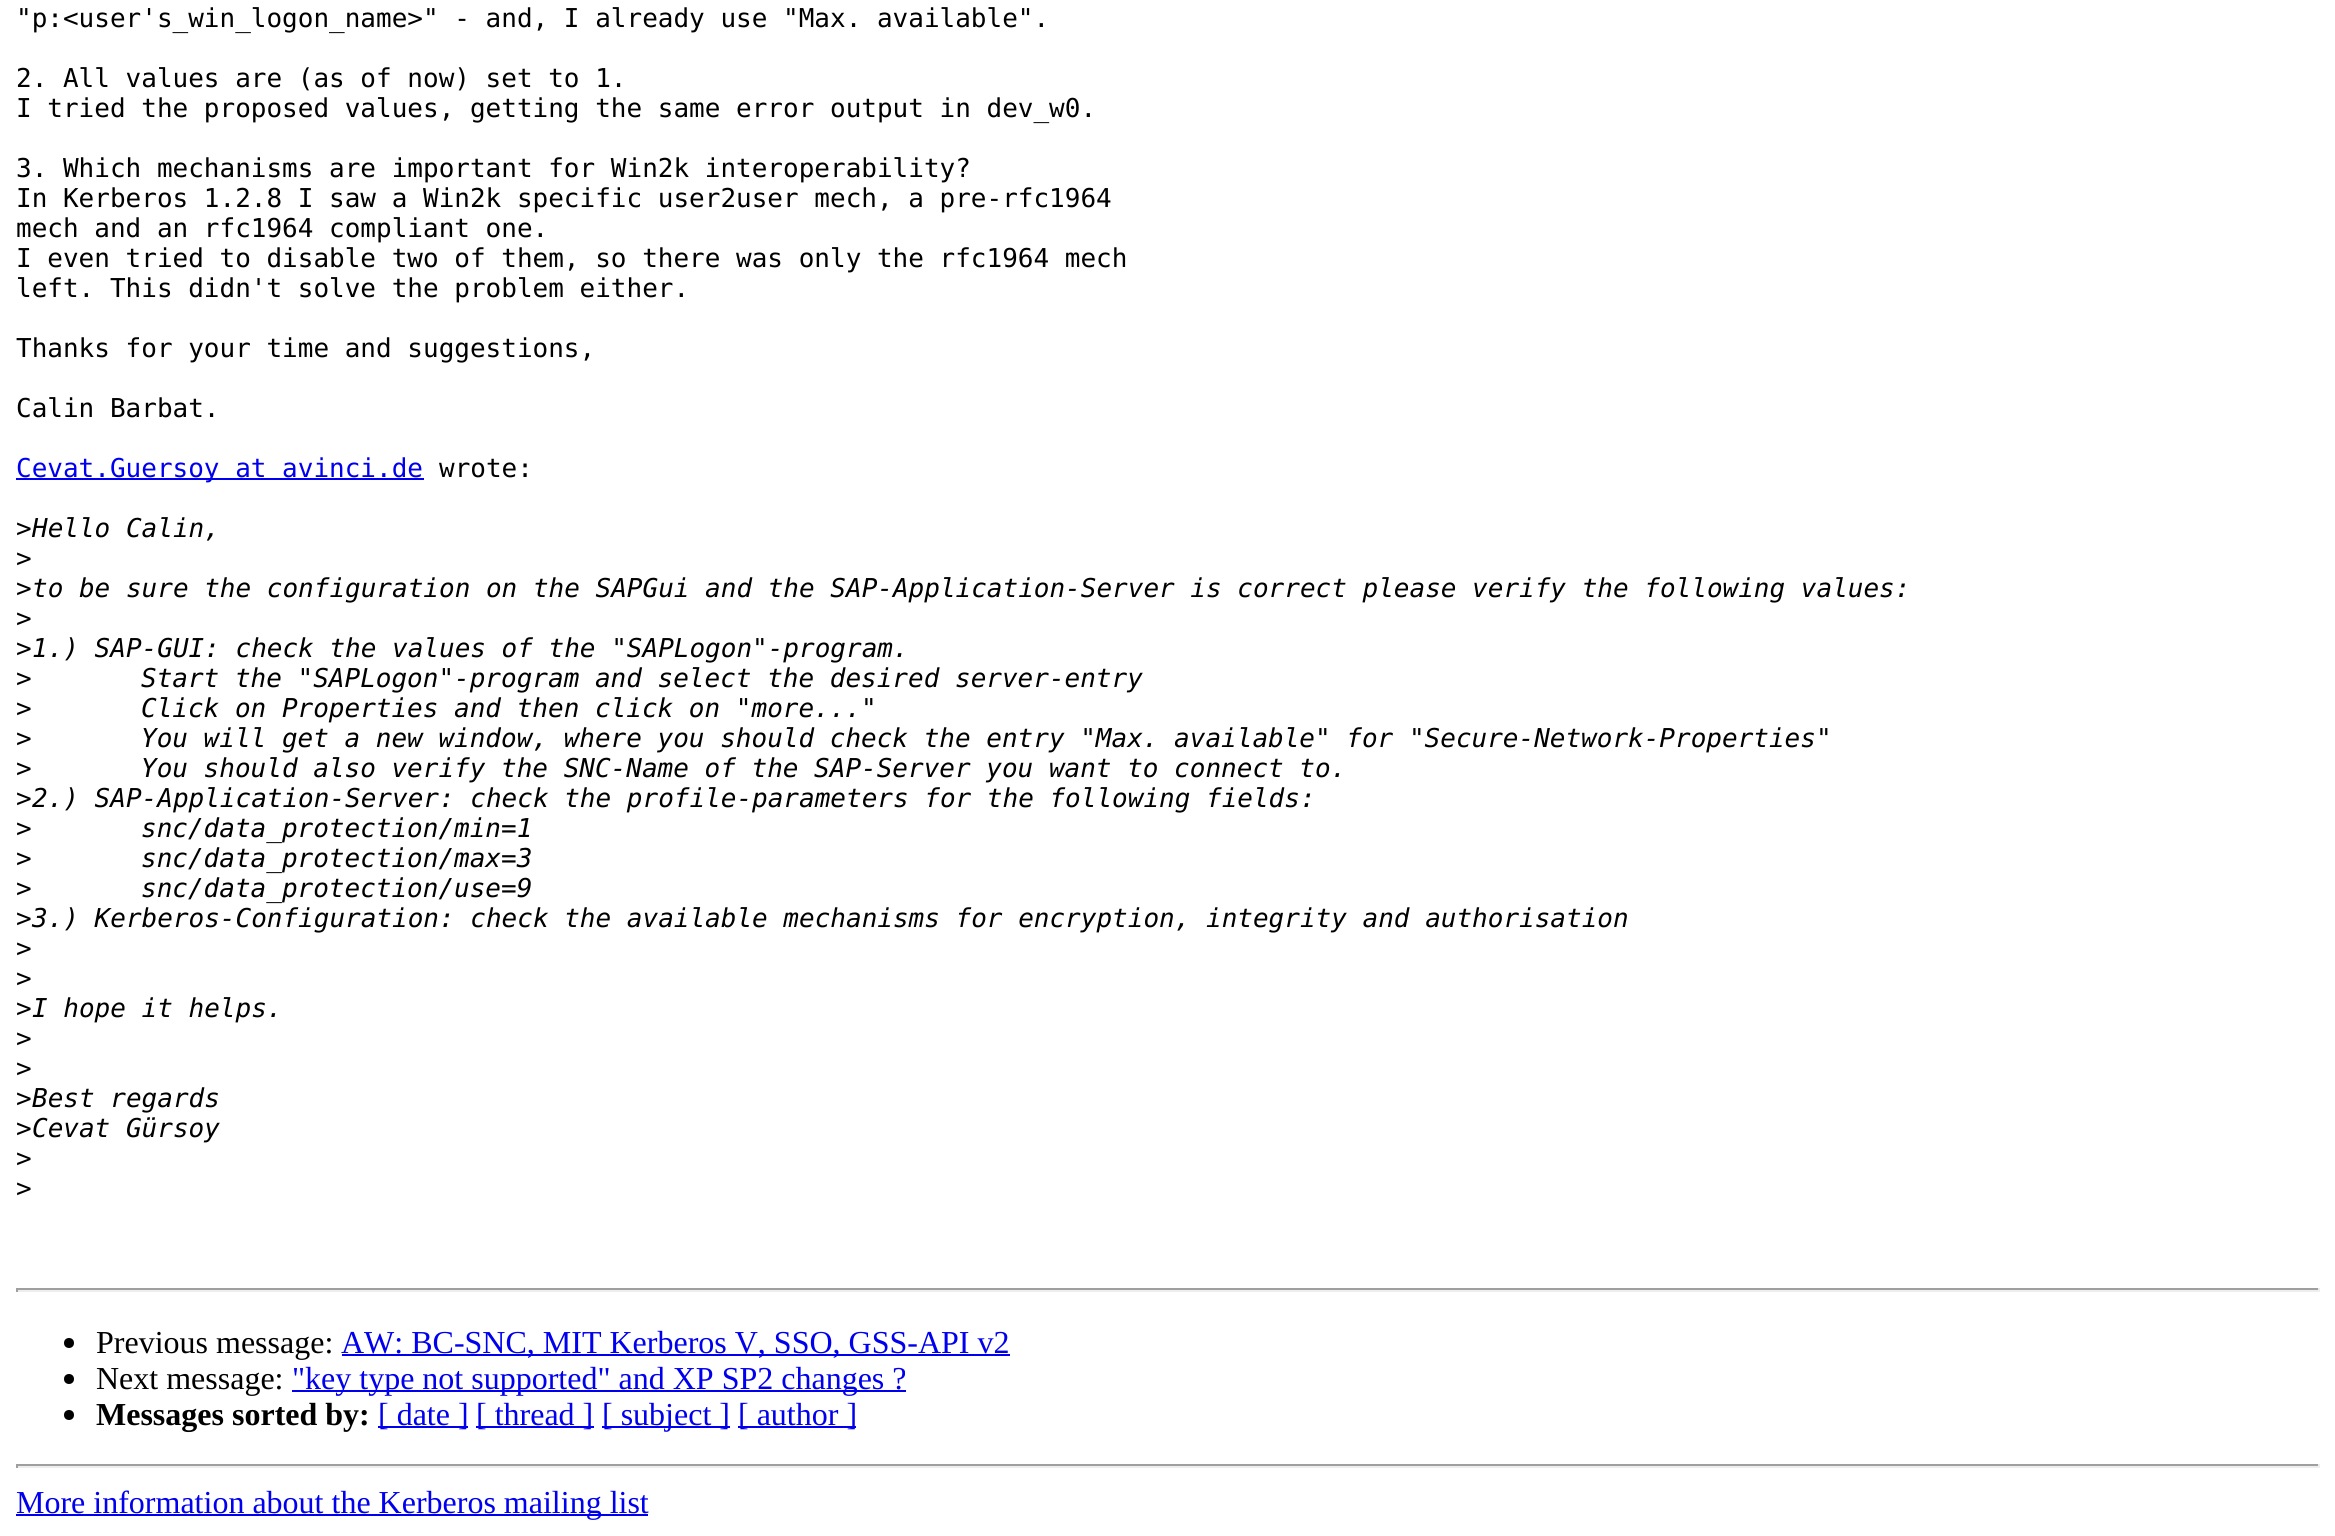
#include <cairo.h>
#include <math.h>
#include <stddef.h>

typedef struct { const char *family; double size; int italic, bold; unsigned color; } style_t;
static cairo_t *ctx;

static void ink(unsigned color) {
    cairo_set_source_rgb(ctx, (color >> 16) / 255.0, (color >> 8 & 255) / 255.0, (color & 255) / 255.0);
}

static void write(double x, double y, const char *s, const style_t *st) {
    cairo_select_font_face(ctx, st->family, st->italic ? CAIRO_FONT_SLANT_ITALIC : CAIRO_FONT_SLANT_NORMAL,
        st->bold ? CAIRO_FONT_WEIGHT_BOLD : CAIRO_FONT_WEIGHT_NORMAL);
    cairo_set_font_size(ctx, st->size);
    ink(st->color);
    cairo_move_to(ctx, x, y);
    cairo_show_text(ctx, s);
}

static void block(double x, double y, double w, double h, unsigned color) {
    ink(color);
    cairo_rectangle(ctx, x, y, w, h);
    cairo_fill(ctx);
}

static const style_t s1 = {"DejaVu Sans Mono", 26, 0, 0, 0x000000};
static const style_t s2 = {"DejaVu Sans Mono", 26, 0, 0, 0x0000ee};
static const style_t s3 = {"DejaVu Sans Mono", 26, 1, 0, 0x000000};
static const style_t s4 = {"Liberation Serif", 32, 0, 0, 0x000000};
static const style_t s5 = {"Liberation Serif", 32, 0, 0, 0x0000ee};
static const style_t s6 = {"Liberation Serif", 32, 0, 1, 0x000000};

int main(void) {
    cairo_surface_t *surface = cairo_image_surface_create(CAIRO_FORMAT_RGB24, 2335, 1536);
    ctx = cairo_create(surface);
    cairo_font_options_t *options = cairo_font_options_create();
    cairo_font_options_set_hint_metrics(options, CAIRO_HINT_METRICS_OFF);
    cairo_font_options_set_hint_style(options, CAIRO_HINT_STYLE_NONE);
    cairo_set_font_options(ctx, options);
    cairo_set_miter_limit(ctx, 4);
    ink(0xffffff);
    cairo_paint(ctx);
    write(16, 27, "\"p:<user's_win_logon_name>\" - and, I already use \"Max. available\".", &s1);
    write(16, 87, "2. All values are (as of now) set to 1.", &s1);
    write(16, 117, "I tried the proposed values, getting the same error output in dev_w0.", &s1);
    write(16, 177, "3. Which mechanisms are important for Win2k interoperability?", &s1);
    write(16, 207, "In Kerberos 1.2.8 I saw a Win2k specific user2user mech, a pre-rfc1964", &s1);
    write(16, 237, "mech and an rfc1964 compliant one.", &s1);
    write(16, 267, "I even tried to disable two of them, so there was only the rfc1964 mech", &s1);
    write(16, 297, "left. This didn't solve the problem either.", &s1);
    write(16, 357, "Thanks for your time and suggestions,", &s1);
    write(16, 417, "Calin Barbat.", &s1);
    block(16, 478, 408, 2, 0x0000ee);
    write(16, 477, "Cevat.Guersoy at avinci.de", &s2);
    write(439, 477, "wrote:", &s1);
    write(16, 537, ">", &s1);
    write(32, 537, "Hello Calin,", &s3);
    write(16, 567, ">", &s1);
    write(16, 597, ">", &s1);
    write(32, 597, "to be sure the configuration on the SAPGui and the SAP-Application-Server is correct please verify the following values:", &s3);
    write(16, 627, ">", &s1);
    write(16, 657, ">", &s1);
    write(32, 657, "1.) SAP-GUI: check the values of the \"SAPLogon\"-program.", &s3);
    write(16, 687, ">", &s1);
    write(141, 687, "Start the \"SAPLogon\"-program and select the desired server-entry", &s3);
    write(16, 717, ">", &s1);
    write(141, 717, "Click on Properties and then click on \"more...\"", &s3);
    write(16, 747, ">", &s1);
    write(141, 747, "You will get a new window, where you should check the entry \"Max. available\" for \"Secure-Network-Properties\"", &s3);
    write(16, 777, ">", &s1);
    write(141, 777, "You should also verify the SNC-Name of the SAP-Server you want to connect to.", &s3);
    write(16, 807, ">", &s1);
    write(32, 807, "2.) SAP-Application-Server: check the profile-parameters for the following fields:", &s3);
    write(16, 837, ">", &s1);
    write(141, 837, "snc/data_protection/min=1", &s3);
    write(16, 867, ">", &s1);
    write(141, 867, "snc/data_protection/max=3", &s3);
    write(16, 897, ">", &s1);
    write(141, 897, "snc/data_protection/use=9", &s3);
    write(16, 927, ">", &s1);
    write(32, 927, "3.) Kerberos-Configuration: check the available mechanisms for encryption, integrity and authorisation", &s3);
    write(16, 957, ">", &s1);
    write(16, 987, ">", &s1);
    write(16, 1017, ">", &s1);
    write(32, 1017, "I hope it helps.", &s3);
    write(16, 1047, ">", &s1);
    write(16, 1077, ">", &s1);
    write(16, 1107, ">", &s1);
    write(32, 1107, "Best regards", &s3);
    write(16, 1137, ">", &s1);
    write(32, 1137, "Cevat Gürsoy", &s3);
    write(16, 1167, ">", &s1);
    write(16, 1197, ">", &s1);
    block(16, 1288, 2304, 2, 0x9f9f9f);
    block(2318, 1288, 2, 4, 0xeeeeee);
    block(16, 1290, 2304, 2, 0xeeeeee);
    block(16, 1288, 2, 4, 0x9f9f9f);
    ink(0x000000);
    cairo_new_path(ctx);
    cairo_arc(ctx, 69, 1343, 5, 0, 2 * M_PI);
    cairo_fill(ctx);
    write(96, 1353, "Previous message:", &s4);
    block(342, 1354, 668, 2, 0x0000ee);
    write(341, 1353, "AW: BC-SNC, MIT Kerberos V, SSO, GSS-API v2", &s5);
    ink(0x000000);
    cairo_new_path(ctx);
    cairo_arc(ctx, 69, 1379, 5, 0, 2 * M_PI);
    cairo_fill(ctx);
    write(96, 1389, "Next message:", &s4);
    block(292, 1390, 614, 2, 0x0000ee);
    write(292, 1389, "\"key type not supported\" and XP SP2 changes ?", &s5);
    ink(0x000000);
    cairo_new_path(ctx);
    cairo_arc(ctx, 69, 1415, 5, 0, 2 * M_PI);
    cairo_fill(ctx);
    write(96, 1425, "Messages sorted by:", &s6);
    block(378, 1426, 90, 2, 0x0000ee);
    write(378, 1425, "[ date ]", &s5);
    block(476, 1426, 118, 2, 0x0000ee);
    write(476, 1425, "[ thread ]", &s5);
    block(602, 1426, 128, 2, 0x0000ee);
    write(602, 1425, "[ subject ]", &s5);
    block(738, 1426, 118, 2, 0x0000ee);
    write(738, 1425, "[ author ]", &s5);
    block(16, 1464, 2304, 2, 0x9f9f9f);
    block(2318, 1464, 2, 4, 0xeeeeee);
    block(16, 1466, 2304, 2, 0xeeeeee);
    block(16, 1464, 2, 4, 0x9f9f9f);
    block(16, 1514, 632, 2, 0x0000ee);
    write(16, 1513, "More information about the Kerberos mailing list", &s5);
    cairo_surface_write_to_png(surface, "screenshot.png");
    cairo_font_options_destroy(options);
    cairo_destroy(ctx);
    cairo_surface_destroy(surface);
    return 0;
}
